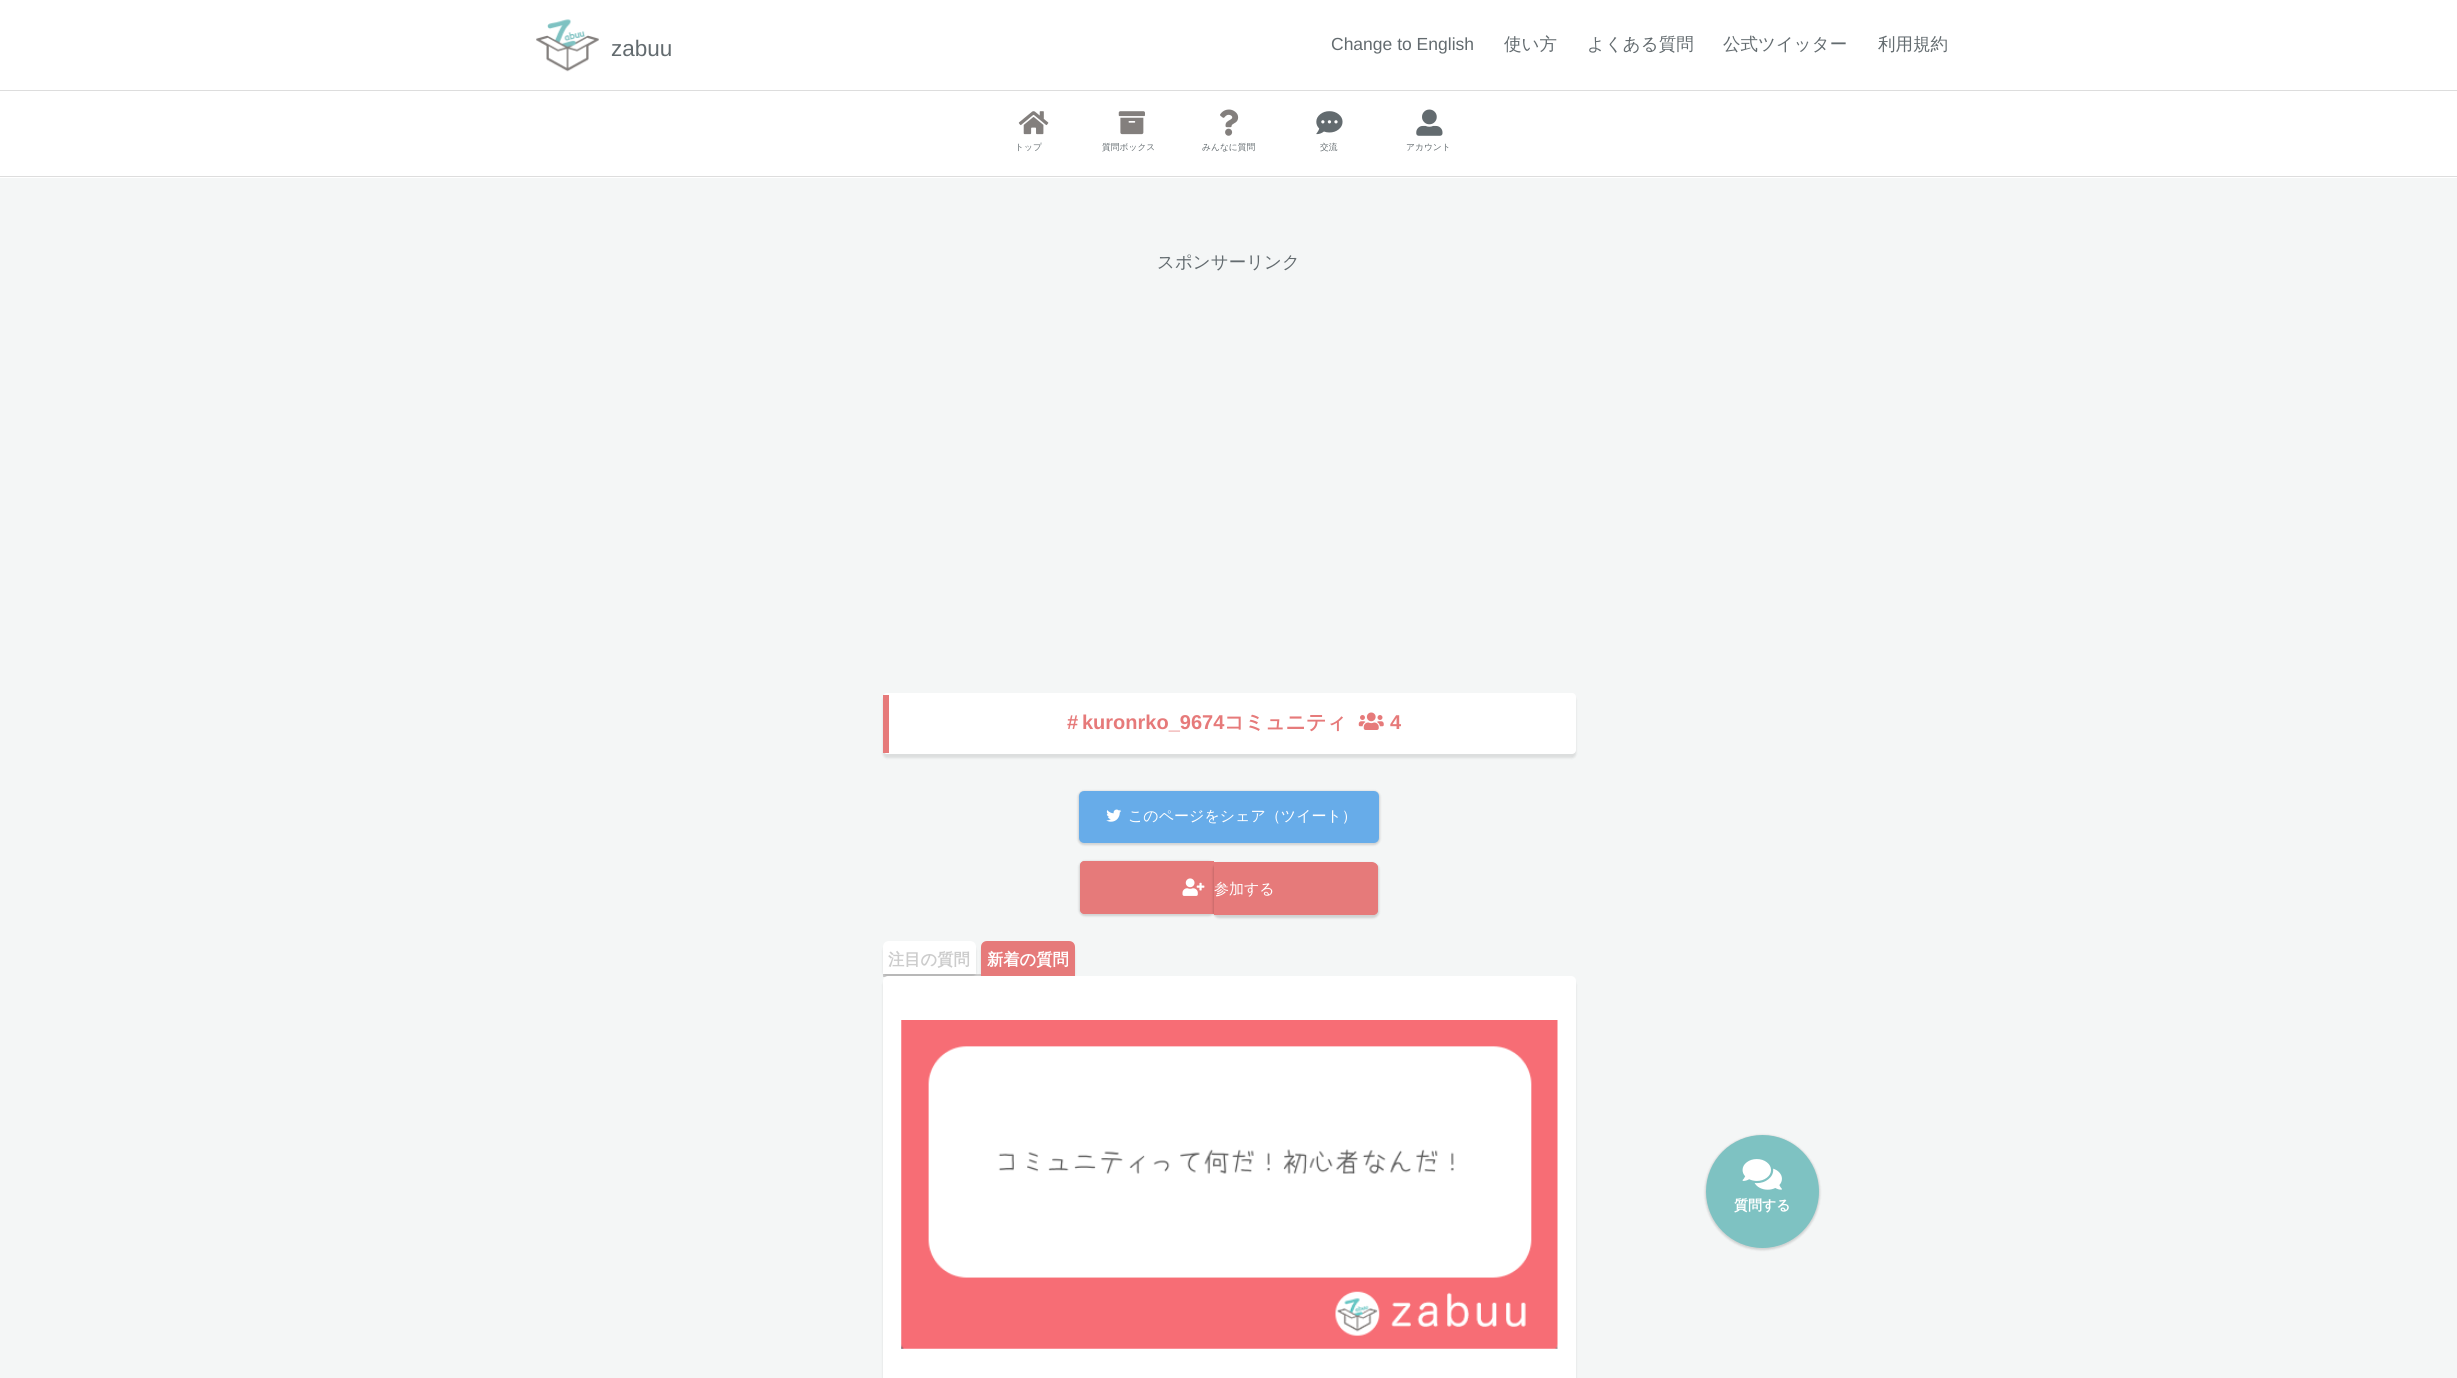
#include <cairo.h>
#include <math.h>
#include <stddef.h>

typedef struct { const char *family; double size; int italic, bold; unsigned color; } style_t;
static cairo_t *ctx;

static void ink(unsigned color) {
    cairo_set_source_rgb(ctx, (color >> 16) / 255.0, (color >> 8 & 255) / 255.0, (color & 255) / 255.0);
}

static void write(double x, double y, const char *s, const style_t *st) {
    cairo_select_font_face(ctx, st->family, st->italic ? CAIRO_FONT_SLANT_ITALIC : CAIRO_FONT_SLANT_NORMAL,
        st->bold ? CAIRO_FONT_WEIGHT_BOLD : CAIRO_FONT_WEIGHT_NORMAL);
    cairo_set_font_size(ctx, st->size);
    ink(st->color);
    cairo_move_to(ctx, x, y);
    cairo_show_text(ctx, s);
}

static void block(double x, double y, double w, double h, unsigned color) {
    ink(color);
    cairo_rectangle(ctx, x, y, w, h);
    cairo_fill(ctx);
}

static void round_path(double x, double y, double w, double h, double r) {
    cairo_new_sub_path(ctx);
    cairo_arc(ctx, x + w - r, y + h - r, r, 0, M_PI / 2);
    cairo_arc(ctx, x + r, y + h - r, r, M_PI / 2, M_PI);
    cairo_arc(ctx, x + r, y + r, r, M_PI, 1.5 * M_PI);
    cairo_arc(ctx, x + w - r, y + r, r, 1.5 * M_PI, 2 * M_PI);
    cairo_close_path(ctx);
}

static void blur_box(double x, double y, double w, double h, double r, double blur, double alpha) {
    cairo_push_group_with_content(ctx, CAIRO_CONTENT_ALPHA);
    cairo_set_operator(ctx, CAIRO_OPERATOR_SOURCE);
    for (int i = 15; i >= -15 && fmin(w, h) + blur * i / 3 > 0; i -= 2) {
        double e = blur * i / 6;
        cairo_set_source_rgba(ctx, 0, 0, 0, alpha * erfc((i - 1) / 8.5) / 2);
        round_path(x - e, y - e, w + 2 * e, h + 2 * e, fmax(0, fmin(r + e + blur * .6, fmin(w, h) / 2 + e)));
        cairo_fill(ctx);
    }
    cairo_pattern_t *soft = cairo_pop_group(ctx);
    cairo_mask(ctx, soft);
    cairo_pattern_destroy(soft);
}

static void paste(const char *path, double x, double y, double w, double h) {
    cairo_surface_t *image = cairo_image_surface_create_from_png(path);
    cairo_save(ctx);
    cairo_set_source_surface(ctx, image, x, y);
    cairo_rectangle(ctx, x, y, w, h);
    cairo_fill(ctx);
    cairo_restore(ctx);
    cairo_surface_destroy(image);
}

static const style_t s1 = {"Liberation Sans", 22.5, 0, 0, 0x636b6f};
static const style_t s2 = {"Liberation Sans", 17.5, 0, 0, 0x636b6f};
static const style_t s3 = {"WenQuanYi Zen Hei Medium", 17.5, 0, 0, 0x636b6f};
static const style_t s4 = {"WenQuanYi Zen Hei Medium", 8.75, 0, 0, 0x636b6f};
static const style_t s5 = {"Liberation Sans", 20, 0, 1, 0xe67a7a};
static const style_t s6 = {"WenQuanYi Zen Hei", 20, 0, 1, 0xe67a7a};
static const style_t s7 = {"WenQuanYi Zen Hei Medium", 15, 0, 0, 0xffffff};
static const style_t s8 = {"WenQuanYi Zen Hei", 16.25, 0, 1, 0xcccccc};
static const style_t s9 = {"WenQuanYi Zen Hei", 16.25, 0, 1, 0xffffff};
static const style_t s10 = {"WenQuanYi Zen Hei", 14, 0, 1, 0xffffff};

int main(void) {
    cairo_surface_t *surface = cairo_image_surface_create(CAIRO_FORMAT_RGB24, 2457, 1378);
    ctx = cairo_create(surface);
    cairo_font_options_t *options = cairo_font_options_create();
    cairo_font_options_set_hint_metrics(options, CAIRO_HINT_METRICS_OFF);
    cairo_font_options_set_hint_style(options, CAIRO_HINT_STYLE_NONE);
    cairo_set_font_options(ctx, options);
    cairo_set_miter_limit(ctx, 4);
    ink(0xf4f6f6);
    cairo_paint(ctx);
    block(0, 0, 2457, 90, 0xffffff);
    paste("pic1.png", 536, 19, 63, 53);
    write(611, 56, "zabuu", &s1);
    write(1331, 50, "Change to English", &s2);
    write(1504, 50, "使い方", &s3);
    write(1587, 50, "よくある質問", &s3);
    write(1723, 50, "公式ツイッター", &s3);
    write(1878, 50, "利用規約", &s3);
    block(0, 91, 2457, 87, 0xffffff);
    block(0, 90, 2457, 1, 0xdddddd);
    block(0, 176, 2457, 1, 0xdddddd);
    paste("pic2.png", 1018, 111, 31, 24);
    write(1015, 150, "トップ", &s4);
    paste("pic3.png", 1118, 111, 27, 24);
    write(1102, 150, "質問ボックス", &s4);
    paste("pic4.png", 1220, 109, 19, 27);
    write(1202, 150, "みんなに質問", &s4);
    paste("pic5.png", 1316, 111, 27, 24);
    write(1320, 150, "交流", &s4);
    paste("pic6.png", 1416, 109, 27, 27);
    write(1406, 150, "アカウント", &s4);
    write(1157, 268, "スポンサーリンク", &s3);
    ink(0x000000);
    blur_box(883, 696, 693, 62, 4, 1, 0.1);
    ink(0xffffff);
    round_path(883, 693, 693, 61, 4);
    cairo_fill(ctx);
    block(883, 695, 6, 58, 0xe67a7a);
    write(1067, 729, "#", &s5);
    write(1082, 729, "kuronrko_9674", &s5);
    write(1224, 729, "コミュニティ", &s6);
    paste("pic7.png", 1358, 712, 26, 18);
    write(1390, 729, "4", &s5);
    ink(0x000000);
    blur_box(1078, 791, 302, 54, 6, 1, 0.15);
    ink(0x67ace9);
    round_path(1080.5, 792.5, 297, 49, 3.5);
    cairo_fill_preserve(ctx);
    cairo_set_line_width(ctx, 3);
    cairo_stroke(ctx);
    paste("pic8.png", 1106, 809, 16, 13);
    write(1128, 821, "このページをシェア（ツイート）", &s7);
    ink(0x000000);
    blur_box(1079, 861, 136, 55, 6, 1, 0.15);
    ink(0xe67a7a);
    cairo_new_path(ctx);
    cairo_move_to(ctx, 1085, 861);
    cairo_line_to(ctx, 1214, 861);
    cairo_line_to(ctx, 1214, 914);
    cairo_line_to(ctx, 1085, 914);
    cairo_curve_to(ctx, 1082, 914, 1080, 912, 1080, 909);
    cairo_line_to(ctx, 1080, 866);
    cairo_curve_to(ctx, 1080, 863, 1082, 861, 1085, 861);
    cairo_close_path(ctx);
    cairo_fill(ctx);
    cairo_set_fill_rule(ctx, CAIRO_FILL_RULE_EVEN_ODD);
    cairo_new_path(ctx);
    cairo_move_to(ctx, 1085, 861);
    cairo_line_to(ctx, 1214, 861);
    cairo_line_to(ctx, 1214, 914);
    cairo_line_to(ctx, 1085, 914);
    cairo_curve_to(ctx, 1082, 914, 1080, 912, 1080, 909);
    cairo_line_to(ctx, 1080, 866);
    cairo_curve_to(ctx, 1080, 863, 1082, 861, 1085, 861);
    cairo_close_path(ctx);
    cairo_move_to(ctx, 1085, 864);
    cairo_line_to(ctx, 1214, 864);
    cairo_line_to(ctx, 1214, 911);
    cairo_line_to(ctx, 1085, 911);
    cairo_curve_to(ctx, 1084, 911, 1082, 910, 1082, 909);
    cairo_line_to(ctx, 1082, 866);
    cairo_curve_to(ctx, 1082, 865, 1084, 864, 1085, 864);
    cairo_close_path(ctx);
    cairo_fill(ctx);
    ink(0x000000);
    blur_box(1213, 863, 166, 55, 6, 1, 0.15);
    ink(0xe67a7a);
    cairo_new_path(ctx);
    cairo_move_to(ctx, 1214, 863);
    cairo_line_to(ctx, 1373, 863);
    cairo_curve_to(ctx, 1376, 863, 1378, 865, 1378, 868);
    cairo_line_to(ctx, 1378, 910);
    cairo_curve_to(ctx, 1378, 913, 1376, 915, 1373, 915);
    cairo_line_to(ctx, 1214, 915);
    cairo_close_path(ctx);
    cairo_fill(ctx);
    cairo_new_path(ctx);
    cairo_move_to(ctx, 1214, 862);
    cairo_line_to(ctx, 1372, 862);
    cairo_curve_to(ctx, 1375, 862, 1378, 865, 1378, 868);
    cairo_line_to(ctx, 1378, 910);
    cairo_curve_to(ctx, 1378, 913, 1375, 915, 1372, 915);
    cairo_line_to(ctx, 1214, 915);
    cairo_close_path(ctx);
    cairo_move_to(ctx, 1214, 865);
    cairo_line_to(ctx, 1372, 865);
    cairo_curve_to(ctx, 1374, 865, 1375, 866, 1375, 868);
    cairo_line_to(ctx, 1375, 910);
    cairo_curve_to(ctx, 1375, 911, 1374, 912, 1372, 912);
    cairo_line_to(ctx, 1214, 912);
    cairo_close_path(ctx);
    cairo_fill(ctx);
    paste("pic9.png", 1182, 878, 23, 18);
    write(1214, 894, "参加する", &s7);
    block(883, 974, 98, 3, 0xcccccc);
    ink(0x000000);
    blur_box(883, 945, 93, 33, 6, 1, 0.1);
    ink(0xffffff);
    cairo_new_path(ctx);
    cairo_move_to(ctx, 889, 941);
    cairo_line_to(ctx, 970, 941);
    cairo_curve_to(ctx, 973.5, 941, 976, 943.5, 976, 947);
    cairo_line_to(ctx, 976, 974);
    cairo_line_to(ctx, 883, 974);
    cairo_line_to(ctx, 883, 947);
    cairo_curve_to(ctx, 883, 943.5, 885.5, 941, 889, 941);
    cairo_close_path(ctx);
    cairo_fill(ctx);
    write(888, 965, "注目の質問", &s8);
    ink(0x000000);
    blur_box(981, 945, 94, 35, 6, 1, 0.1);
    ink(0xe67a7a);
    cairo_new_path(ctx);
    cairo_move_to(ctx, 987, 941);
    cairo_line_to(ctx, 1069, 941);
    cairo_curve_to(ctx, 1072.5, 941, 1075, 943.5, 1075, 947);
    cairo_line_to(ctx, 1075, 976);
    cairo_line_to(ctx, 981, 976);
    cairo_line_to(ctx, 981, 947);
    cairo_curve_to(ctx, 981, 943.5, 983.5, 941, 987, 941);
    cairo_close_path(ctx);
    cairo_fill(ctx);
    write(987, 965, "新着の質問", &s9);
    ink(0x000000);
    blur_box(883, 980, 693, 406, 5, 1, 0.1);
    ink(0xffffff);
    round_path(883, 976, 693, 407, 5);
    cairo_fill(ctx);
    paste("pic10.png", 901, 1020, 657, 329);
    ink(0x000000);
    blur_box(1705, 1135, 115, 115, 57.5, 1, 0.15);
    ink(0x7ec2c2);
    cairo_arc(ctx, 1762.5, 1191.5, 56.5, 0, 2 * M_PI);
    cairo_fill(ctx);
    paste("pic11.png", 1742, 1159, 40, 31);
    write(1734, 1210, "質問する", &s10);
    cairo_surface_write_to_png(surface, "screenshot.png");
    cairo_font_options_destroy(options);
    cairo_destroy(ctx);
    cairo_surface_destroy(surface);
    return 0;
}
